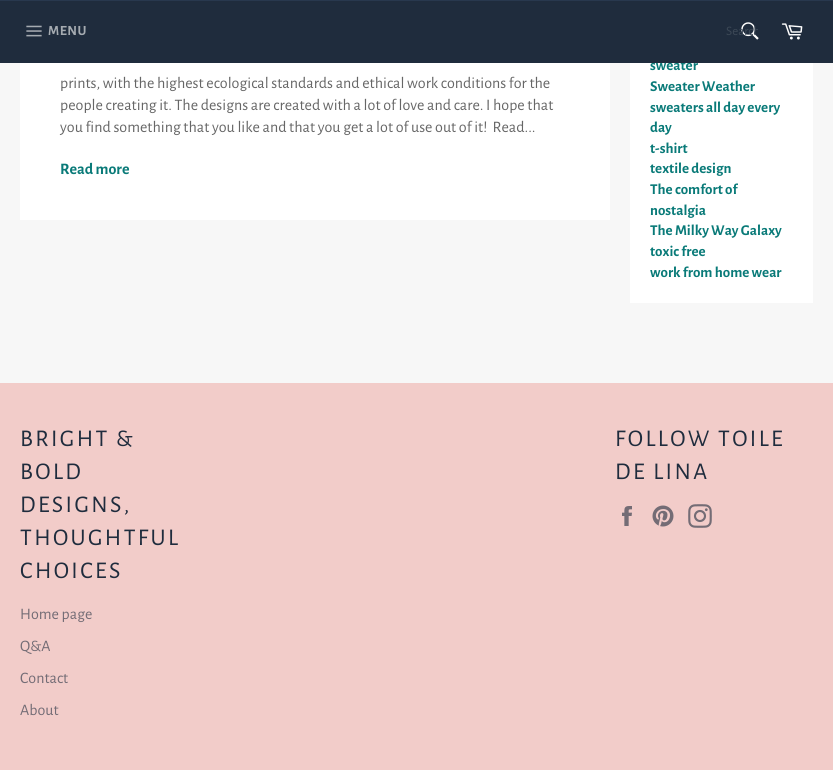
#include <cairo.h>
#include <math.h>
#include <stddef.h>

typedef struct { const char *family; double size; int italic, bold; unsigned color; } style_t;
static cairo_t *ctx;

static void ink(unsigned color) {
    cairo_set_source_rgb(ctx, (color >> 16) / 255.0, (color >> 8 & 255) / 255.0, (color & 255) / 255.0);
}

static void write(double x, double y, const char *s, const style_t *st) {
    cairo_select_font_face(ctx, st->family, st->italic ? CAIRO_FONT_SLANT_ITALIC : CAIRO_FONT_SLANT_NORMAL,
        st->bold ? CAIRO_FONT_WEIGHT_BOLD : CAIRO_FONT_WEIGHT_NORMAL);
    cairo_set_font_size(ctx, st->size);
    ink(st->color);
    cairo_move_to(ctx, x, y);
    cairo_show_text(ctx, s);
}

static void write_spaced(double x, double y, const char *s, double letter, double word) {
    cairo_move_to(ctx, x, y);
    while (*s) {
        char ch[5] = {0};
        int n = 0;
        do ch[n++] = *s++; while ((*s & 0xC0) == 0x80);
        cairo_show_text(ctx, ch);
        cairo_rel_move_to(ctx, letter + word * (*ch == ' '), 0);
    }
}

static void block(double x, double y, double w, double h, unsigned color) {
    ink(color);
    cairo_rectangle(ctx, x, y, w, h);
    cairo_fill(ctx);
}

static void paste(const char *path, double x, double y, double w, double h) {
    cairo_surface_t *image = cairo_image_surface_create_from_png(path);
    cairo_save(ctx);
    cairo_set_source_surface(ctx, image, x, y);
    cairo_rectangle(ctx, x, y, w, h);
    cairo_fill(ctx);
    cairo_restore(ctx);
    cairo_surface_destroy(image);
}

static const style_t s1 = {"Alegreya Sans", 15, 0, 1, 0x097a78};
static const style_t s2 = {"Alegreya Sans", 13, 0, 0, 0x3c4856};
static const style_t s3 = {"Alegreya Sans", 16, 0, 0, 0x666666};
static const style_t s4 = {"Alegreya Sans", 16, 0, 1, 0x097a78};
static const style_t s5 = {"Alegreya Sans", 16, 0, 0, 0x736c75};

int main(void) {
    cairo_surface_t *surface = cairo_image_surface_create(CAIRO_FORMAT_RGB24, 833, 770);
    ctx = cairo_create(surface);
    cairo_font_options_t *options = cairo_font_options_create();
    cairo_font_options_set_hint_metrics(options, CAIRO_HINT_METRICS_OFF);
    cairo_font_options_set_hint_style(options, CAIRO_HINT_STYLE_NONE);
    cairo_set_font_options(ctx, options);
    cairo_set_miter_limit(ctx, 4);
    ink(0xf7f7f7);
    cairo_paint(ctx);
    block(630, 63, 183, 240, 0xffffff);
    write(650, 70, "sweater", &s1);
    block(0, 1, 833, 62, 0x1f2c3d);
    block(0, 0, 833, 1, 0x28384e);
    paste("pic1.png", 26, 25, 16, 12);
    cairo_set_font_size(ctx, 14);
    ink(0xa5abb1);
    write_spaced(48, 35, "MENU", 0.5, 0);
    paste("pic2.png", 741, 22, 18, 18);
    cairo_save(ctx);
    cairo_rectangle(ctx, 726, 24, 32, 16);
    cairo_clip(ctx);
    write(726, 35, "Search", &s2);
    cairo_restore(ctx);
    paste("pic3.png", 781, 23, 22, 17);
    block(20, 63, 590, 157, 0xffffff);
    write(60, 88, "prints, with the highest ecological standards and ethical work conditions for the", &s3);
    write(60, 110, "people creating it. The designs are created with a lot of love and care. I hope that", &s3);
    write(60, 132, "you find something that you like and that you get a lot of use out of it!  Read...", &s3);
    write(60, 174, "Read more", &s4);
    write(650, 91, "Sweater Weather", &s1);
    write(650, 112, "sweaters all day every", &s1);
    write(650, 132, "day", &s1);
    write(650, 153, "t-shirt", &s1);
    write(650, 173, "textile design", &s1);
    write(650, 194, "The comfort of", &s1);
    write(650, 215, "nostalgia", &s1);
    write(650, 235, "The Milky Way Galaxy", &s1);
    write(650, 256, "toxic free", &s1);
    write(650, 277, "work from home wear", &s1);
    block(0, 383, 833, 387, 0xf2ccc9);
    cairo_select_font_face(ctx, "Alegreya Sans", CAIRO_FONT_SLANT_NORMAL, CAIRO_FONT_WEIGHT_NORMAL);
    cairo_set_font_size(ctx, 24);
    ink(0x1f2c3d);
    write_spaced(20, 446, "BRIGHT &", 2.4, 0);
    write_spaced(20, 479, "BOLD", 2.4, 0);
    write_spaced(20, 512, "DESIGNS,", 2.4, 0);
    write_spaced(20, 545, "THOUGHTFUL", 2.4, 0);
    write_spaced(20, 578, "CHOICES", 2.4, 0);
    write(20, 619, "Home page", &s5);
    write(20, 651, "Q&A", &s5);
    write(20, 683, "Contact", &s5);
    write(20, 715, "About", &s5);
    cairo_set_font_size(ctx, 24);
    ink(0x1f2c3d);
    write_spaced(615, 446, "FOLLOW TOILE", 2.4, 0);
    write_spaced(615, 479, "DE LINA", 2.4, 0);
    paste("pic4.png", 622, 506, 10, 20);
    paste("pic5.png", 652, 505, 22, 22);
    paste("pic6.png", 688, 504, 24, 24);
    cairo_surface_write_to_png(surface, "screenshot.png");
    cairo_font_options_destroy(options);
    cairo_destroy(ctx);
    cairo_surface_destroy(surface);
    return 0;
}
